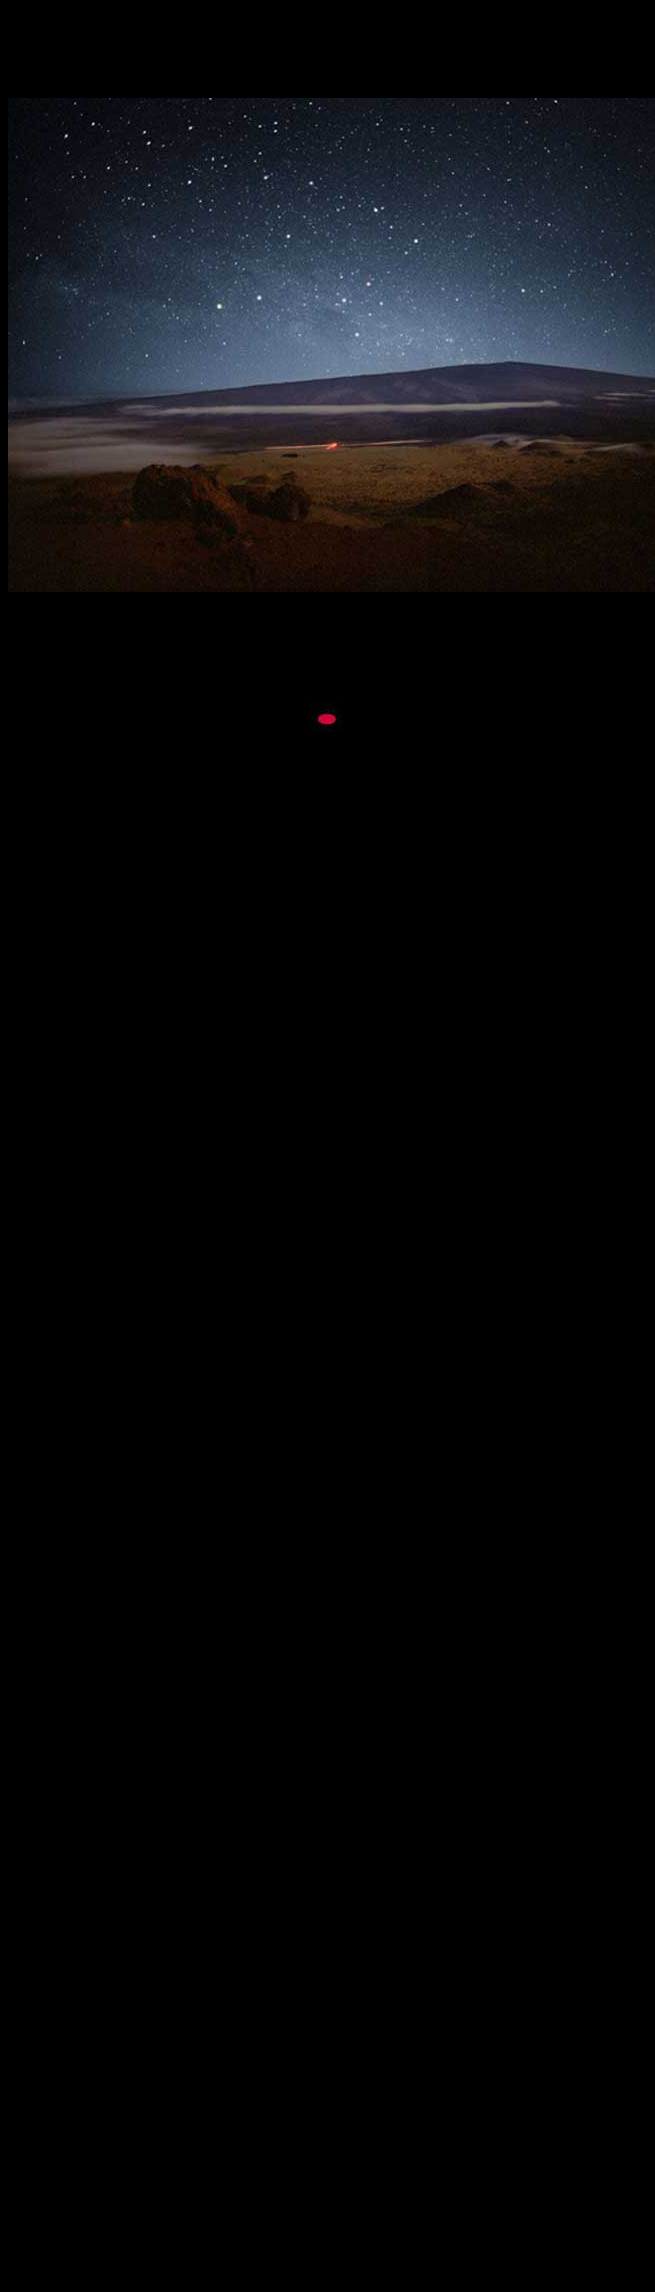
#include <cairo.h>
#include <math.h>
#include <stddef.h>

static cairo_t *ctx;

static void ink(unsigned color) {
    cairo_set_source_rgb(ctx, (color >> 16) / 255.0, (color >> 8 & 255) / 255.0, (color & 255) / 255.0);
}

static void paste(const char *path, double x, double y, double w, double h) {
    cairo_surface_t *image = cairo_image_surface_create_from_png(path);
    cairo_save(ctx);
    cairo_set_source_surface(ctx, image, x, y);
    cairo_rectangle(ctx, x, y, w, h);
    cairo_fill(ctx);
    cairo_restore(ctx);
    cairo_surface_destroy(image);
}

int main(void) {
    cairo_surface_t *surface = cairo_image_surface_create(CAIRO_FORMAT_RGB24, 655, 2292);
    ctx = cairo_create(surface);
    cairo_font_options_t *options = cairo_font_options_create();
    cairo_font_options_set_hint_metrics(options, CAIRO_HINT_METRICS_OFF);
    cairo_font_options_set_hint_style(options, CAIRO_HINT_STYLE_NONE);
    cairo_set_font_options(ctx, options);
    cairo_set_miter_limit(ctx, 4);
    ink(0x000000);
    cairo_paint(ctx);
    paste("pic1.png", 8, 98, 647, 494);
    paste("pic2.png", 310, 700, 32, 32);
    cairo_surface_write_to_png(surface, "screenshot.png");
    cairo_font_options_destroy(options);
    cairo_destroy(ctx);
    cairo_surface_destroy(surface);
    return 0;
}
